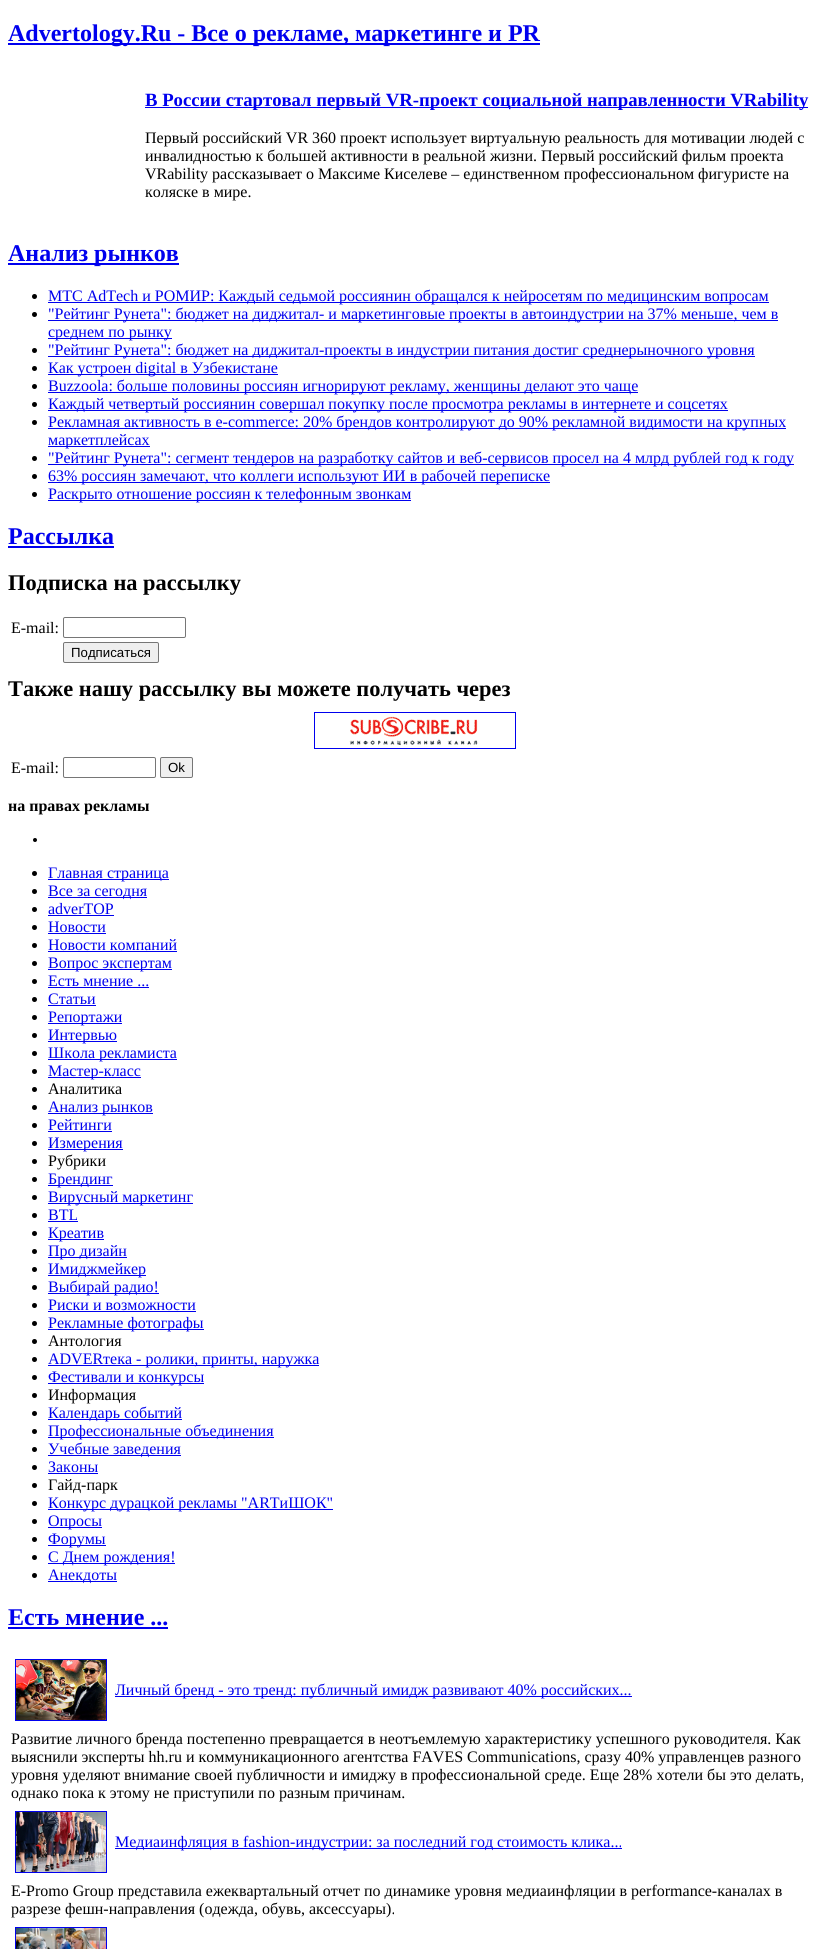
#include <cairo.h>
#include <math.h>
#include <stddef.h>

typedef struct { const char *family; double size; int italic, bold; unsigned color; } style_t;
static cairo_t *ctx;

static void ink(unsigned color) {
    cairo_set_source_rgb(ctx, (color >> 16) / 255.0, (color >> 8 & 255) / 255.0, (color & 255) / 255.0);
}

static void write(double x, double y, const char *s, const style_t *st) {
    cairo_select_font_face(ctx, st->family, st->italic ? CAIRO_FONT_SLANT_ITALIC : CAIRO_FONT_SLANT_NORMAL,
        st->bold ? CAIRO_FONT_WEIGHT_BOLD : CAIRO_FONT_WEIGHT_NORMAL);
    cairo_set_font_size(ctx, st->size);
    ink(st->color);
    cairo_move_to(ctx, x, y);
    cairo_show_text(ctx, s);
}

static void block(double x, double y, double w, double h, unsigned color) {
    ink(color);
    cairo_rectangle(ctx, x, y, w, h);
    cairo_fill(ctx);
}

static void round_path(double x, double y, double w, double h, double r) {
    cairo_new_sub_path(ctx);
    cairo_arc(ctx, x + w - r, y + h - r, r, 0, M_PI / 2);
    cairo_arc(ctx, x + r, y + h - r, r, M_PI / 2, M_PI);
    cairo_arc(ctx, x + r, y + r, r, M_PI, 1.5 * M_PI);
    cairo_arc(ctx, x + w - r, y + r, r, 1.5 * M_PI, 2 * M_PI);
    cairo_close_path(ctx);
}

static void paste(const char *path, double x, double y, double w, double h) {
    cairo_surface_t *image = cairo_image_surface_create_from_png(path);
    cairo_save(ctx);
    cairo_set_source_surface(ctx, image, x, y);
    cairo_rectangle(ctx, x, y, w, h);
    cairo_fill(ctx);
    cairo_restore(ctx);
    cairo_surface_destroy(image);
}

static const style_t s1 = {"Liberation Serif", 24, 0, 1, 0x0000ee};
static const style_t s2 = {"Liberation Serif", 18.7, 0, 1, 0x0000ee};
static const style_t s3 = {"Liberation Serif", 16, 0, 0, 0x000000};
static const style_t s4 = {"Liberation Serif", 16, 0, 0, 0x0000ee};
static const style_t s5 = {"Liberation Serif", 22.4, 0, 1, 0x000000};
static const style_t s6 = {"Liberation Sans", 13.25, 0, 0, 0x000000};
static const style_t s7 = {"Liberation Serif", 16, 0, 1, 0x000000};

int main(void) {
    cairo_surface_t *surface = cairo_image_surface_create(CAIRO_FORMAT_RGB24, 830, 1949);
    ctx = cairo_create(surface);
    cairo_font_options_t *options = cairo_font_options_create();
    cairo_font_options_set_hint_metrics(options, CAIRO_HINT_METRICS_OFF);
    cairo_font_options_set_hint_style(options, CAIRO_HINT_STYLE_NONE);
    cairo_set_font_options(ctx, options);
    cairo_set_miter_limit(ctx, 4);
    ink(0xffffff);
    cairo_paint(ctx);
    block(8, 43, 532, 2, 0x0000ee);
    write(8, 41, "Advertology.Ru - Все о рекламе, маркетинге и PR", &s1);
    block(145, 107, 663, 1, 0x0000ee);
    write(145, 106, "В России стартовал первый VR-проект социальной направленности VRability", &s2);
    write(145, 143, "Первый российский VR 360 проект использует виртуальную реальность для мотивации людей с", &s3);
    write(145, 161, "инвалидностью к большей активности в реальной жизни. Первый российский фильм проекта", &s3);
    write(145, 179, "VRability рассказывает о Максиме Киселеве – единственном професcиональном фигуристе на", &s3);
    write(145, 197, "коляске в мире.", &s3);
    block(8, 263, 171, 2, 0x0000ee);
    write(8, 261, "Анализ рынков", &s1);
    ink(0x000000);
    cairo_new_path(ctx);
    cairo_arc(ctx, 34.5, 296.5, 2.5, 0, 2 * M_PI);
    cairo_fill(ctx);
    block(48, 302, 721, 1, 0x0000ee);
    write(48, 301, "МТС AdTech и РОМИР: Каждый седьмой россиянин обращался к нейросетям по медицинским вопросам", &s4);
    ink(0x000000);
    cairo_new_path(ctx);
    cairo_arc(ctx, 34.5, 314.5, 2.5, 0, 2 * M_PI);
    cairo_fill(ctx);
    block(48, 320, 730, 1, 0x0000ee);
    write(48, 319, "\"Рейтинг Рунета\": бюджет на диджитал- и маркетинговые проекты в автоиндустрии на 37% меньше, чем в", &s4);
    block(48, 338, 124, 1, 0x0000ee);
    write(48, 337, "среднем по рынку", &s4);
    ink(0x000000);
    cairo_new_path(ctx);
    cairo_arc(ctx, 34.5, 350.5, 2.5, 0, 2 * M_PI);
    cairo_fill(ctx);
    block(48, 356, 707, 1, 0x0000ee);
    write(48, 355, "\"Рейтинг Рунета\": бюджет на диджитал-проекты в индустрии питания достиг среднерыночного уровня", &s4);
    ink(0x000000);
    cairo_new_path(ctx);
    cairo_arc(ctx, 34.5, 368.5, 2.5, 0, 2 * M_PI);
    cairo_fill(ctx);
    block(48, 374, 230, 1, 0x0000ee);
    write(48, 373, "Как устроен digital в Узбекистане", &s4);
    ink(0x000000);
    cairo_new_path(ctx);
    cairo_arc(ctx, 34.5, 386.5, 2.5, 0, 2 * M_PI);
    cairo_fill(ctx);
    block(48, 392, 590, 1, 0x0000ee);
    write(48, 391, "Buzzoola: больше половины россиян игнорируют рекламу, женщины делают это чаще", &s4);
    ink(0x000000);
    cairo_new_path(ctx);
    cairo_arc(ctx, 34.5, 404.5, 2.5, 0, 2 * M_PI);
    cairo_fill(ctx);
    block(48, 410, 680, 1, 0x0000ee);
    write(48, 409, "Каждый четвертый россиянин совершал покупку после просмотра рекламы в интернете и соцсетях", &s4);
    ink(0x000000);
    cairo_new_path(ctx);
    cairo_arc(ctx, 34.5, 422.5, 2.5, 0, 2 * M_PI);
    cairo_fill(ctx);
    block(48, 428, 738, 1, 0x0000ee);
    write(48, 427, "Рекламная активность в e-commerce: 20% брендов контролируют до 90% рекламной видимости на крупных", &s4);
    block(48, 446, 102, 1, 0x0000ee);
    write(48, 445, "маркетплейсах", &s4);
    ink(0x000000);
    cairo_new_path(ctx);
    cairo_arc(ctx, 34.5, 458.5, 2.5, 0, 2 * M_PI);
    cairo_fill(ctx);
    block(48, 464, 746, 1, 0x0000ee);
    write(48, 463, "\"Рейтинг Рунета\": сегмент тендеров на разработку сайтов и веб-сервисов просел на 4 млрд рублей год к году", &s4);
    ink(0x000000);
    cairo_new_path(ctx);
    cairo_arc(ctx, 34.5, 476.5, 2.5, 0, 2 * M_PI);
    cairo_fill(ctx);
    block(48, 482, 502, 1, 0x0000ee);
    write(48, 481, "63% россиян замечают, что коллеги используют ИИ в рабочей переписке", &s4);
    ink(0x000000);
    cairo_new_path(ctx);
    cairo_arc(ctx, 34.5, 494.5, 2.5, 0, 2 * M_PI);
    cairo_fill(ctx);
    block(48, 500, 363, 1, 0x0000ee);
    write(48, 499, "Раскрыто отношение россиян к телефонным звонкам", &s4);
    write(8, 544, "Рассылка", &s1);
    block(8, 546, 106, 2, 0x0000ee);
    write(8, 590, "Подписка на рассылку", &s5);
    write(11, 633, "E-mail:", &s3);
    round_path(63.5, 617.5, 122, 20, 1.5);
    ink(0x767676);
    cairo_set_line_width(ctx, 1);
    cairo_stroke(ctx);
    ink(0xefefef);
    round_path(63.5, 642.5, 95, 20, 1.5);
    cairo_fill_preserve(ctx);
    ink(0x767676);
    cairo_stroke(ctx);
    write(71, 657, "Подписаться", &s6);
    write(8, 696, "Также нашу рассылку вы можете получать через", &s5);
    cairo_rectangle(ctx, 314.5, 712.5, 201, 36);
    ink(0x0000ee);
    cairo_stroke(ctx);
    paste("pic1.png", 349, 716, 129, 30);
    write(11, 773, "E-mail:", &s3);
    round_path(63.5, 757.5, 92, 20, 1.5);
    ink(0x767676);
    cairo_stroke(ctx);
    ink(0xefefef);
    round_path(160.5, 757.5, 32, 20, 1.5);
    cairo_fill_preserve(ctx);
    ink(0x767676);
    cairo_stroke(ctx);
    write(168, 772, "Ok", &s6);
    write(8, 811, "на правах рекламы", &s7);
    cairo_new_path(ctx);
    cairo_arc(ctx, 35, 840, 2, 0, 2 * M_PI);
    cairo_fill(ctx);
    cairo_arc(ctx, 34.5, 873.5, 2.5, 0, 2 * M_PI);
    cairo_fill(ctx);
    block(48, 879, 121, 1, 0x0000ee);
    write(48, 878, "Главная страница", &s4);
    ink(0x000000);
    cairo_new_path(ctx);
    cairo_arc(ctx, 34.5, 891.5, 2.5, 0, 2 * M_PI);
    cairo_fill(ctx);
    block(48, 897, 99, 1, 0x0000ee);
    write(48, 896, "Все за сегодня", &s4);
    ink(0x000000);
    cairo_new_path(ctx);
    cairo_arc(ctx, 34.5, 909.5, 2.5, 0, 2 * M_PI);
    cairo_fill(ctx);
    write(48, 914, "adverTOP", &s4);
    block(48, 915, 66, 1, 0x0000ee);
    ink(0x000000);
    cairo_new_path(ctx);
    cairo_arc(ctx, 34.5, 927.5, 2.5, 0, 2 * M_PI);
    cairo_fill(ctx);
    write(48, 932, "Новости", &s4);
    block(48, 933, 58, 1, 0x0000ee);
    ink(0x000000);
    cairo_new_path(ctx);
    cairo_arc(ctx, 34.5, 945.5, 2.5, 0, 2 * M_PI);
    cairo_fill(ctx);
    write(48, 950, "Новости компаний", &s4);
    block(48, 951, 129, 1, 0x0000ee);
    ink(0x000000);
    cairo_new_path(ctx);
    cairo_arc(ctx, 34.5, 963.5, 2.5, 0, 2 * M_PI);
    cairo_fill(ctx);
    block(48, 969, 124, 1, 0x0000ee);
    write(48, 968, "Вопрос экспертам", &s4);
    ink(0x000000);
    cairo_new_path(ctx);
    cairo_arc(ctx, 34.5, 981.5, 2.5, 0, 2 * M_PI);
    cairo_fill(ctx);
    write(48, 986, "Есть мнение ...", &s4);
    block(48, 987, 101, 1, 0x0000ee);
    ink(0x000000);
    cairo_new_path(ctx);
    cairo_arc(ctx, 34.5, 999.5, 2.5, 0, 2 * M_PI);
    cairo_fill(ctx);
    write(48, 1004, "Статьи", &s4);
    block(48, 1005, 48, 1, 0x0000ee);
    ink(0x000000);
    cairo_new_path(ctx);
    cairo_arc(ctx, 34.5, 1017.5, 2.5, 0, 2 * M_PI);
    cairo_fill(ctx);
    block(48, 1023, 74, 1, 0x0000ee);
    write(48, 1022, "Репортажи", &s4);
    ink(0x000000);
    cairo_new_path(ctx);
    cairo_arc(ctx, 34.5, 1035.5, 2.5, 0, 2 * M_PI);
    cairo_fill(ctx);
    block(48, 1041, 69, 1, 0x0000ee);
    write(48, 1040, "Интервью", &s4);
    ink(0x000000);
    cairo_new_path(ctx);
    cairo_arc(ctx, 34.5, 1053.5, 2.5, 0, 2 * M_PI);
    cairo_fill(ctx);
    block(48, 1059, 129, 1, 0x0000ee);
    write(48, 1058, "Школа рекламиста", &s4);
    ink(0x000000);
    cairo_new_path(ctx);
    cairo_arc(ctx, 34.5, 1071.5, 2.5, 0, 2 * M_PI);
    cairo_fill(ctx);
    block(48, 1077, 93, 1, 0x0000ee);
    write(48, 1076, "Мастер-класс", &s4);
    ink(0x000000);
    cairo_new_path(ctx);
    cairo_arc(ctx, 34.5, 1089.5, 2.5, 0, 2 * M_PI);
    cairo_fill(ctx);
    write(48, 1094, "Аналитика", &s3);
    cairo_new_path(ctx);
    cairo_arc(ctx, 34.5, 1107.5, 2.5, 0, 2 * M_PI);
    cairo_fill(ctx);
    block(48, 1113, 105, 1, 0x0000ee);
    write(48, 1112, "Анализ рынков", &s4);
    ink(0x000000);
    cairo_new_path(ctx);
    cairo_arc(ctx, 34.5, 1125.5, 2.5, 0, 2 * M_PI);
    cairo_fill(ctx);
    write(48, 1130, "Рейтинги", &s4);
    block(48, 1131, 64, 1, 0x0000ee);
    ink(0x000000);
    cairo_new_path(ctx);
    cairo_arc(ctx, 34.5, 1143.5, 2.5, 0, 2 * M_PI);
    cairo_fill(ctx);
    block(48, 1149, 75, 1, 0x0000ee);
    write(48, 1148, "Измерения", &s4);
    ink(0x000000);
    cairo_new_path(ctx);
    cairo_arc(ctx, 34.5, 1161.5, 2.5, 0, 2 * M_PI);
    cairo_fill(ctx);
    write(48, 1166, "Рубрики", &s3);
    cairo_new_path(ctx);
    cairo_arc(ctx, 34.5, 1179.5, 2.5, 0, 2 * M_PI);
    cairo_fill(ctx);
    block(48, 1185, 65, 1, 0x0000ee);
    write(48, 1184, "Брендинг", &s4);
    ink(0x000000);
    cairo_new_path(ctx);
    cairo_arc(ctx, 34.5, 1197.5, 2.5, 0, 2 * M_PI);
    cairo_fill(ctx);
    block(48, 1203, 145, 1, 0x0000ee);
    write(48, 1202, "Вирусный маркетинг", &s4);
    ink(0x000000);
    cairo_new_path(ctx);
    cairo_arc(ctx, 34.5, 1215.5, 2.5, 0, 2 * M_PI);
    cairo_fill(ctx);
    write(48, 1220, "BTL", &s4);
    block(48, 1221, 30, 1, 0x0000ee);
    ink(0x000000);
    cairo_new_path(ctx);
    cairo_arc(ctx, 34.5, 1233.5, 2.5, 0, 2 * M_PI);
    cairo_fill(ctx);
    block(48, 1239, 56, 1, 0x0000ee);
    write(48, 1238, "Креатив", &s4);
    ink(0x000000);
    cairo_new_path(ctx);
    cairo_arc(ctx, 34.5, 1251.5, 2.5, 0, 2 * M_PI);
    cairo_fill(ctx);
    block(48, 1257, 79, 1, 0x0000ee);
    write(48, 1256, "Про дизайн", &s4);
    ink(0x000000);
    cairo_new_path(ctx);
    cairo_arc(ctx, 34.5, 1269.5, 2.5, 0, 2 * M_PI);
    cairo_fill(ctx);
    block(48, 1275, 98, 1, 0x0000ee);
    write(48, 1274, "Имиджмейкер", &s4);
    ink(0x000000);
    cairo_new_path(ctx);
    cairo_arc(ctx, 34.5, 1287.5, 2.5, 0, 2 * M_PI);
    cairo_fill(ctx);
    block(48, 1293, 111, 1, 0x0000ee);
    write(48, 1292, "Выбирай радио!", &s4);
    ink(0x000000);
    cairo_new_path(ctx);
    cairo_arc(ctx, 34.5, 1305.5, 2.5, 0, 2 * M_PI);
    cairo_fill(ctx);
    write(48, 1310, "Риски и возможности", &s4);
    block(48, 1311, 148, 1, 0x0000ee);
    ink(0x000000);
    cairo_new_path(ctx);
    cairo_arc(ctx, 34.5, 1323.5, 2.5, 0, 2 * M_PI);
    cairo_fill(ctx);
    block(48, 1329, 156, 1, 0x0000ee);
    write(48, 1328, "Рекламные фотографы", &s4);
    ink(0x000000);
    cairo_new_path(ctx);
    cairo_arc(ctx, 34.5, 1341.5, 2.5, 0, 2 * M_PI);
    cairo_fill(ctx);
    write(48, 1346, "Антология", &s3);
    cairo_new_path(ctx);
    cairo_arc(ctx, 34.5, 1359.5, 2.5, 0, 2 * M_PI);
    cairo_fill(ctx);
    block(48, 1365, 271, 1, 0x0000ee);
    write(48, 1364, "ADVERтека - ролики, принты, наружка", &s4);
    ink(0x000000);
    cairo_new_path(ctx);
    cairo_arc(ctx, 34.5, 1377.5, 2.5, 0, 2 * M_PI);
    cairo_fill(ctx);
    block(48, 1383, 156, 1, 0x0000ee);
    write(48, 1382, "Фестивали и конкурсы", &s4);
    ink(0x000000);
    cairo_new_path(ctx);
    cairo_arc(ctx, 34.5, 1395.5, 2.5, 0, 2 * M_PI);
    cairo_fill(ctx);
    write(48, 1400, "Информация", &s3);
    cairo_new_path(ctx);
    cairo_arc(ctx, 34.5, 1413.5, 2.5, 0, 2 * M_PI);
    cairo_fill(ctx);
    block(48, 1419, 134, 1, 0x0000ee);
    write(48, 1418, "Календарь событий", &s4);
    ink(0x000000);
    cairo_new_path(ctx);
    cairo_arc(ctx, 34.5, 1431.5, 2.5, 0, 2 * M_PI);
    cairo_fill(ctx);
    block(48, 1437, 226, 1, 0x0000ee);
    write(48, 1436, "Профессиональные объединения", &s4);
    ink(0x000000);
    cairo_new_path(ctx);
    cairo_arc(ctx, 34.5, 1449.5, 2.5, 0, 2 * M_PI);
    cairo_fill(ctx);
    block(48, 1455, 133, 1, 0x0000ee);
    write(48, 1454, "Учебные заведения", &s4);
    ink(0x000000);
    cairo_new_path(ctx);
    cairo_arc(ctx, 34.5, 1467.5, 2.5, 0, 2 * M_PI);
    cairo_fill(ctx);
    write(48, 1472, "Законы", &s4);
    block(48, 1473, 50, 1, 0x0000ee);
    ink(0x000000);
    cairo_new_path(ctx);
    cairo_arc(ctx, 34.5, 1485.5, 2.5, 0, 2 * M_PI);
    cairo_fill(ctx);
    write(48, 1490, "Гайд-парк", &s3);
    cairo_new_path(ctx);
    cairo_arc(ctx, 34.5, 1503.5, 2.5, 0, 2 * M_PI);
    cairo_fill(ctx);
    block(48, 1509, 285, 1, 0x0000ee);
    write(48, 1508, "Конкурс дурацкой рекламы \"ARTиШОК\"", &s4);
    ink(0x000000);
    cairo_new_path(ctx);
    cairo_arc(ctx, 34.5, 1521.5, 2.5, 0, 2 * M_PI);
    cairo_fill(ctx);
    block(48, 1527, 54, 1, 0x0000ee);
    write(48, 1526, "Опросы", &s4);
    ink(0x000000);
    cairo_new_path(ctx);
    cairo_arc(ctx, 34.5, 1539.5, 2.5, 0, 2 * M_PI);
    cairo_fill(ctx);
    block(48, 1545, 58, 1, 0x0000ee);
    write(48, 1544, "Форумы", &s4);
    ink(0x000000);
    cairo_new_path(ctx);
    cairo_arc(ctx, 34.5, 1557.5, 2.5, 0, 2 * M_PI);
    cairo_fill(ctx);
    block(48, 1563, 127, 1, 0x0000ee);
    write(48, 1562, "С Днем рождения!", &s4);
    ink(0x000000);
    cairo_new_path(ctx);
    cairo_arc(ctx, 34.5, 1575.5, 2.5, 0, 2 * M_PI);
    cairo_fill(ctx);
    block(48, 1581, 69, 1, 0x0000ee);
    write(48, 1580, "Анекдоты", &s4);
    write(8, 1625, "Есть мнение ...", &s1);
    block(8, 1627, 160, 2, 0x0000ee);
    cairo_rectangle(ctx, 15.5, 1659.5, 91, 61);
    cairo_stroke(ctx);
    paste("pic2.png", 16, 1660, 90, 60);
    block(115, 1696, 517, 1, 0x0000ee);
    write(115, 1695, "Личный бренд - это тренд: публичный имидж развивают 40% российских...", &s4);
    write(11, 1744, "Развитие личного бренда постепенно превращается в неотъемлемую характеристику успешного руководителя. Как", &s3);
    write(11, 1762, "выяснили эксперты hh.ru и коммуникационного агентства FAVES Communications, сразу 40% управленцев разного", &s3);
    write(11, 1780, "уровня уделяют внимание своей публичности и имиджу в профессиональной среде. Еще 28% хотели бы это делать,", &s3);
    write(11, 1798, "однако пока к этому не приступили по разным причинам.", &s3);
    cairo_rectangle(ctx, 15.5, 1811.5, 91, 61);
    ink(0x0000ee);
    cairo_stroke(ctx);
    paste("pic3.png", 16, 1812, 90, 60);
    block(115, 1848, 507, 1, 0x0000ee);
    write(115, 1847, "Медиаинфляция в fashion-индустрии: за последний год стоимость клика...", &s4);
    write(11, 1896, "E-Promo Group представила ежеквартальный отчет по динамике уровня медиаинфляции в performance-каналах в", &s3);
    write(11, 1914, "разрезе фешн-направления (одежда, обувь, аксессуары).", &s3);
    cairo_rectangle(ctx, 15.5, 1927.5, 91, 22);
    ink(0x0000ee);
    cairo_stroke(ctx);
    paste("pic4.png", 16, 1928, 90, 21);
    cairo_surface_write_to_png(surface, "screenshot.png");
    cairo_font_options_destroy(options);
    cairo_destroy(ctx);
    cairo_surface_destroy(surface);
    return 0;
}
